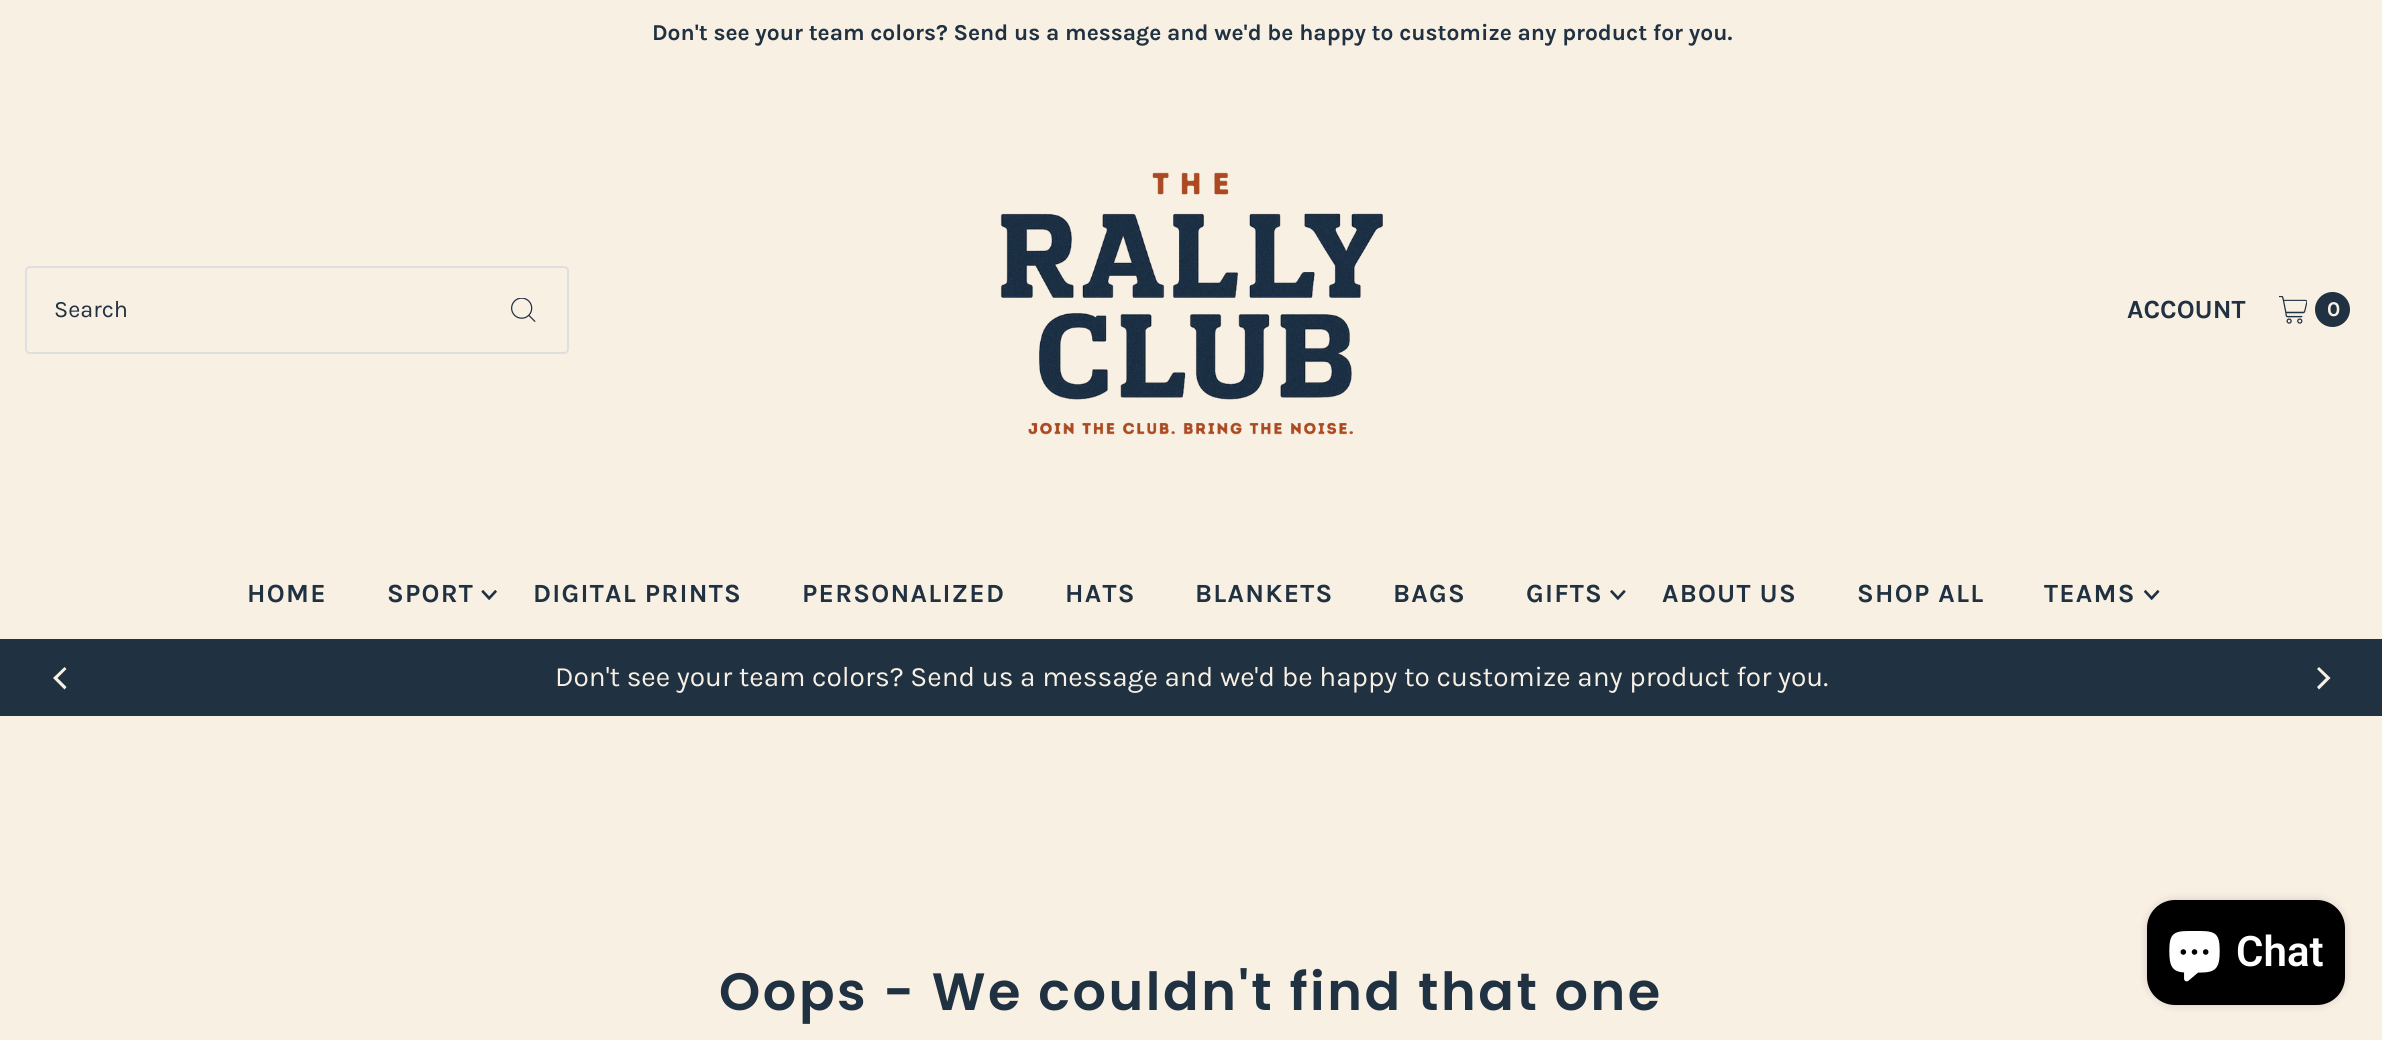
#include <cairo.h>
#include <math.h>
#include <stddef.h>

typedef struct { const char *family; double size; int italic, bold; unsigned color; } style_t;
static cairo_t *ctx;

static void ink(unsigned color) {
    cairo_set_source_rgb(ctx, (color >> 16) / 255.0, (color >> 8 & 255) / 255.0, (color & 255) / 255.0);
}

static void write(double x, double y, const char *s, const style_t *st) {
    cairo_select_font_face(ctx, st->family, st->italic ? CAIRO_FONT_SLANT_ITALIC : CAIRO_FONT_SLANT_NORMAL,
        st->bold ? CAIRO_FONT_WEIGHT_BOLD : CAIRO_FONT_WEIGHT_NORMAL);
    cairo_set_font_size(ctx, st->size);
    ink(st->color);
    cairo_move_to(ctx, x, y);
    cairo_show_text(ctx, s);
}

static void write_spaced(double x, double y, const char *s, double letter, double word) {
    cairo_move_to(ctx, x, y);
    while (*s) {
        char ch[5] = {0};
        int n = 0;
        do ch[n++] = *s++; while ((*s & 0xC0) == 0x80);
        cairo_show_text(ctx, ch);
        cairo_rel_move_to(ctx, letter + word * (*ch == ' '), 0);
    }
}

static void block(double x, double y, double w, double h, unsigned color) {
    ink(color);
    cairo_rectangle(ctx, x, y, w, h);
    cairo_fill(ctx);
}

static void round_path(double x, double y, double w, double h, double r) {
    cairo_new_sub_path(ctx);
    cairo_arc(ctx, x + w - r, y + h - r, r, 0, M_PI / 2);
    cairo_arc(ctx, x + r, y + h - r, r, M_PI / 2, M_PI);
    cairo_arc(ctx, x + r, y + r, r, M_PI, 1.5 * M_PI);
    cairo_arc(ctx, x + w - r, y + r, r, 1.5 * M_PI, 2 * M_PI);
    cairo_close_path(ctx);
}

static void blur_box(double x, double y, double w, double h, double r, double blur, double alpha) {
    cairo_push_group_with_content(ctx, CAIRO_CONTENT_ALPHA);
    cairo_set_operator(ctx, CAIRO_OPERATOR_SOURCE);
    for (int i = 15; i >= -15 && fmin(w, h) + blur * i / 3 > 0; i -= 2) {
        double e = blur * i / 6;
        cairo_set_source_rgba(ctx, 0, 0, 0, alpha * erfc((i - 1) / 8.5) / 2);
        round_path(x - e, y - e, w + 2 * e, h + 2 * e, fmax(0, fmin(r + e + blur * .6, fmin(w, h) / 2 + e)));
        cairo_fill(ctx);
    }
    cairo_pattern_t *soft = cairo_pop_group(ctx);
    cairo_mask(ctx, soft);
    cairo_pattern_destroy(soft);
}

static void paste(const char *path, double x, double y, double w, double h) {
    cairo_surface_t *image = cairo_image_surface_create_from_png(path);
    cairo_save(ctx);
    cairo_set_source_surface(ctx, image, x, y);
    cairo_rectangle(ctx, x, y, w, h);
    cairo_fill(ctx);
    cairo_restore(ctx);
    cairo_surface_destroy(image);
}

static const style_t s1 = {"Karla", 22.75, 0, 1, 0x203141};
static const style_t s2 = {"Karla", 23.5, 0, 0, 0x203141};
static const style_t s3 = {"Karla", 26.25, 0, 1, 0x203141};
static const style_t s4 = {"Karla", 21, 0, 1, 0xf9f0e4};
static const style_t s5 = {"Karla", 28, 0, 0, 0xf9f0e4};
static const style_t s6 = {"Roboto SemiBold", 42, 0, 0, 0xffffff};

int main(void) {
    cairo_surface_t *surface = cairo_image_surface_create(CAIRO_FORMAT_RGB24, 2382, 1040);
    ctx = cairo_create(surface);
    cairo_font_options_t *options = cairo_font_options_create();
    cairo_font_options_set_hint_metrics(options, CAIRO_HINT_METRICS_OFF);
    cairo_font_options_set_hint_style(options, CAIRO_HINT_STYLE_NONE);
    cairo_set_font_options(ctx, options);
    cairo_set_miter_limit(ctx, 4);
    ink(0xf9f0e4);
    cairo_paint(ctx);
    write(652, 40, "Don't see your team colors? Send us a message and we'd be happy to customize any product for you.", &s1);
    round_path(26, 267, 542, 86, 4);
    ink(0xdfdfdf);
    cairo_stroke(ctx);
    write(54, 317, "Search", &s2);
    paste("pic1.png", 511, 298, 25, 24);
    paste("pic2.png", 1000, 172, 383, 263);
    write(2127, 318, "ACCOUNT", &s3);
    paste("pic3.png", 2279, 296, 28, 28);
    cairo_arc(ctx, 2332.5, 309.5, 17.5, 0, 2 * M_PI);
    cairo_fill(ctx);
    write(2327, 316, "0", &s4);
    cairo_set_font_size(ctx, 26.25);
    ink(0x203141);
    write_spaced(247, 602, "HOME", 1.25, 0);
    write_spaced(387, 602, "SPORT", 1.25, 0);
    paste("pic4.png", 481, 590, 16, 10);
    write_spaced(533, 602, "DIGITAL PRINTS", 1.25, 0);
    write_spaced(802, 602, "PERSONALIZED", 1.25, 0);
    write_spaced(1065, 602, "HATS", 1.25, 0);
    write_spaced(1195, 602, "BLANKETS", 1.25, 0);
    write_spaced(1393, 602, "BAGS", 1.25, 0);
    write_spaced(1526, 602, "GIFTS", 1.25, 0);
    paste("pic5.png", 1610, 590, 16, 10);
    write_spaced(1662, 602, "ABOUT US", 1.25, 0);
    write_spaced(1857, 602, "SHOP ALL", 1.25, 0);
    write_spaced(2044, 602, "TEAMS", 1.25, 0);
    paste("pic6.png", 2144, 590, 16, 10);
    block(0, 639, 2382, 77, 0x203141);
    ink(0xf9f0e4);
    cairo_new_path(ctx);
    cairo_move_to(ctx, 53, 678);
    cairo_line_to(ctx, 64.5, 689.5);
    cairo_line_to(ctx, 66.5, 687);
    cairo_line_to(ctx, 57.5, 678);
    cairo_line_to(ctx, 66.5, 669);
    cairo_line_to(ctx, 64.5, 667);
    cairo_close_path(ctx);
    cairo_fill(ctx);
    write(555, 686, "Don't see your team colors? Send us a message and we'd be happy to customize any product for you.", &s5);
    cairo_new_path(ctx);
    cairo_move_to(ctx, 2330.5, 678);
    cairo_line_to(ctx, 2319, 667);
    cairo_line_to(ctx, 2317, 669);
    cairo_line_to(ctx, 2326, 678);
    cairo_line_to(ctx, 2317, 687);
    cairo_line_to(ctx, 2319, 689.5);
    cairo_close_path(ctx);
    cairo_fill(ctx);
    cairo_select_font_face(ctx, "Poppins SemiBold", CAIRO_FONT_SLANT_NORMAL, CAIRO_FONT_WEIGHT_NORMAL);
    cairo_set_font_size(ctx, 52.5);
    ink(0x203141);
    write_spaced(719, 1010, "Oops - We couldn't find that one", 2.6, 0);
    ink(0x000000);
    blur_box(2147, 900, 198, 105, 28, 4.5, 0.15);
    ink(0x000000);
    round_path(2147, 900, 198, 105, 28);
    cairo_fill(ctx);
    paste("pic7.png", 2169, 931, 51, 51);
    write(2236, 966, "Chat", &s6);
    cairo_surface_write_to_png(surface, "screenshot.png");
    cairo_font_options_destroy(options);
    cairo_destroy(ctx);
    cairo_surface_destroy(surface);
    return 0;
}
